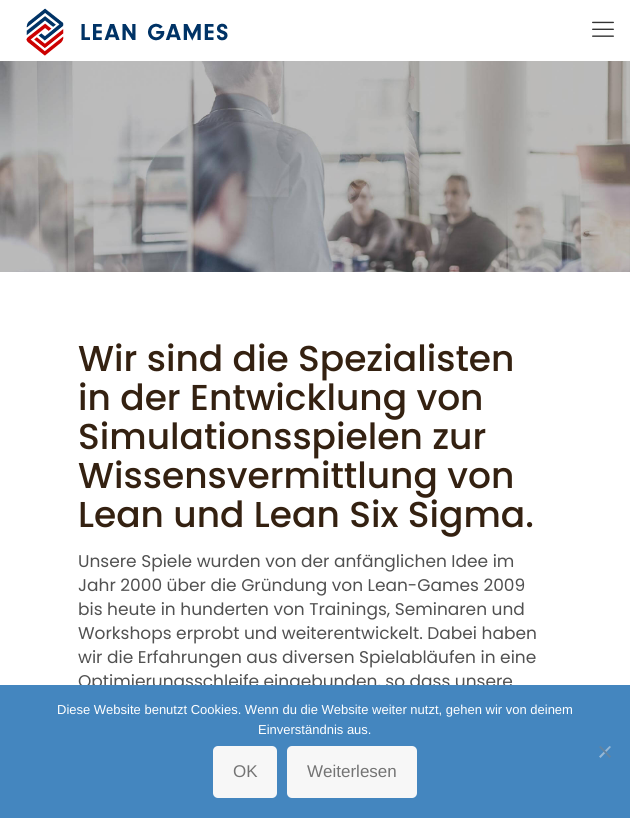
#include <cairo.h>
#include <math.h>
#include <stddef.h>

typedef struct { const char *family; double size; int italic, bold; unsigned color; } style_t;
static cairo_t *ctx;

static void ink(unsigned color) {
    cairo_set_source_rgb(ctx, (color >> 16) / 255.0, (color >> 8 & 255) / 255.0, (color & 255) / 255.0);
}

static void write(double x, double y, const char *s, const style_t *st) {
    cairo_select_font_face(ctx, st->family, st->italic ? CAIRO_FONT_SLANT_ITALIC : CAIRO_FONT_SLANT_NORMAL,
        st->bold ? CAIRO_FONT_WEIGHT_BOLD : CAIRO_FONT_WEIGHT_NORMAL);
    cairo_set_font_size(ctx, st->size);
    ink(st->color);
    cairo_move_to(ctx, x, y);
    cairo_show_text(ctx, s);
}

static void block(double x, double y, double w, double h, unsigned color) {
    ink(color);
    cairo_rectangle(ctx, x, y, w, h);
    cairo_fill(ctx);
}

static void round_path(double x, double y, double w, double h, double r) {
    cairo_new_sub_path(ctx);
    cairo_arc(ctx, x + w - r, y + h - r, r, 0, M_PI / 2);
    cairo_arc(ctx, x + r, y + h - r, r, M_PI / 2, M_PI);
    cairo_arc(ctx, x + r, y + r, r, M_PI, 1.5 * M_PI);
    cairo_arc(ctx, x + w - r, y + r, r, 1.5 * M_PI, 2 * M_PI);
    cairo_close_path(ctx);
}

static void paste(const char *path, double x, double y, double w, double h) {
    cairo_surface_t *image = cairo_image_surface_create_from_png(path);
    cairo_save(ctx);
    cairo_set_source_surface(ctx, image, x, y);
    cairo_rectangle(ctx, x, y, w, h);
    cairo_fill(ctx);
    cairo_restore(ctx);
    cairo_surface_destroy(image);
}

static const style_t s1 = {"Poppins Medium", 36, 0, 0, 0x342111};
static const style_t s2 = {"Poppins", 17, 0, 0, 0x515151};
static const style_t s3 = {"Liberation Sans", 13, 0, 0, 0xffffff};
static const style_t s4 = {"Liberation Sans", 17, 0, 0, 0x747474};

int main(void) {
    cairo_surface_t *surface = cairo_image_surface_create(CAIRO_FORMAT_RGB24, 630, 818);
    ctx = cairo_create(surface);
    cairo_font_options_t *options = cairo_font_options_create();
    cairo_font_options_set_hint_metrics(options, CAIRO_HINT_METRICS_OFF);
    cairo_font_options_set_hint_style(options, CAIRO_HINT_STYLE_NONE);
    cairo_set_font_options(ctx, options);
    cairo_set_miter_limit(ctx, 4);
    ink(0xffffff);
    cairo_paint(ctx);
    paste("pic1.png", 26, 8, 202, 48);
    paste("pic2.png", 592, 21, 22, 16);
    paste("pic3.png", 0, 61, 630, 211);
    write(78, 371, "Wir sind die Spezialisten", &s1);
    write(78, 410, "in der Entwicklung von", &s1);
    write(78, 449, "Simulationsspielen zur", &s1);
    write(78, 488, "Wissensvermittlung von", &s1);
    write(78, 527, "Lean und Lean Six Sigma.", &s1);
    write(78, 567, "Unsere Spiele wurden von der anfänglichen Idee im", &s2);
    write(78, 591, "Jahr 2000 über die Gründung von Lean-Games 2009", &s2);
    write(78, 615, "bis heute in hunderten von Trainings, Seminaren und", &s2);
    write(78, 639, "Workshops erprobt und weiterentwickelt. Dabei haben", &s2);
    write(78, 663, "wir die Erfahrungen aus diversen Spielabläufen in eine", &s2);
    write(78, 687, "Optimierungsschleife eingebunden, so dass unsere", &s2);
    block(0, 685, 630, 133, 0x4486bf);
    write(57, 714, "Diese Website benutzt Cookies. Wenn du die Website weiter nutzt, gehen wir von deinem", &s3);
    write(258, 734, "Einverständnis aus.", &s3);
    ink(0x97b8d5);
    cairo_new_path(ctx);
    cairo_move_to(ctx, 609.5, 746);
    cairo_line_to(ctx, 611, 747);
    cairo_line_to(ctx, 600.5, 758);
    cairo_line_to(ctx, 599, 756.5);
    cairo_close_path(ctx);
    cairo_fill(ctx);
    ink(0x6283a0);
    cairo_new_path(ctx);
    cairo_move_to(ctx, 599, 747);
    cairo_line_to(ctx, 600.5, 746);
    cairo_line_to(ctx, 611, 756.5);
    cairo_line_to(ctx, 609.5, 758);
    cairo_close_path(ctx);
    cairo_fill(ctx);
    ink(0xf7f7f7);
    round_path(213, 746, 64, 52, 5);
    cairo_fill(ctx);
    write(233, 777, "OK", &s4);
    ink(0xf7f7f7);
    round_path(287, 746, 130, 52, 5);
    cairo_fill(ctx);
    write(307, 777, "Weiterlesen", &s4);
    cairo_surface_write_to_png(surface, "screenshot.png");
    cairo_font_options_destroy(options);
    cairo_destroy(ctx);
    cairo_surface_destroy(surface);
    return 0;
}
